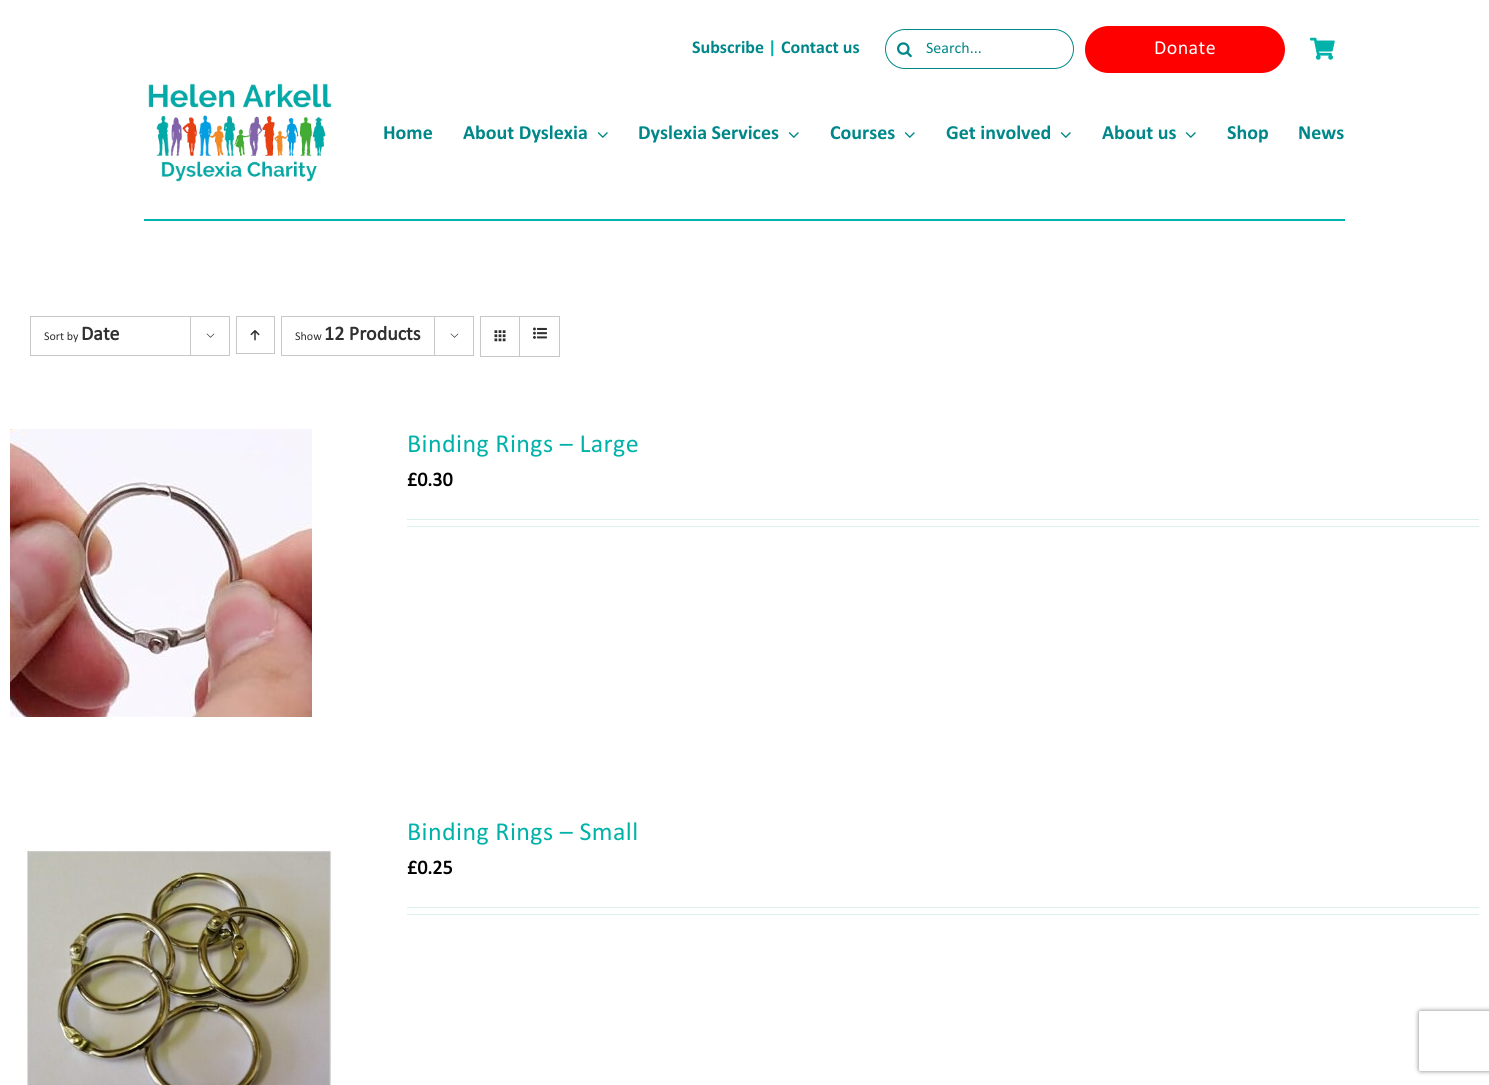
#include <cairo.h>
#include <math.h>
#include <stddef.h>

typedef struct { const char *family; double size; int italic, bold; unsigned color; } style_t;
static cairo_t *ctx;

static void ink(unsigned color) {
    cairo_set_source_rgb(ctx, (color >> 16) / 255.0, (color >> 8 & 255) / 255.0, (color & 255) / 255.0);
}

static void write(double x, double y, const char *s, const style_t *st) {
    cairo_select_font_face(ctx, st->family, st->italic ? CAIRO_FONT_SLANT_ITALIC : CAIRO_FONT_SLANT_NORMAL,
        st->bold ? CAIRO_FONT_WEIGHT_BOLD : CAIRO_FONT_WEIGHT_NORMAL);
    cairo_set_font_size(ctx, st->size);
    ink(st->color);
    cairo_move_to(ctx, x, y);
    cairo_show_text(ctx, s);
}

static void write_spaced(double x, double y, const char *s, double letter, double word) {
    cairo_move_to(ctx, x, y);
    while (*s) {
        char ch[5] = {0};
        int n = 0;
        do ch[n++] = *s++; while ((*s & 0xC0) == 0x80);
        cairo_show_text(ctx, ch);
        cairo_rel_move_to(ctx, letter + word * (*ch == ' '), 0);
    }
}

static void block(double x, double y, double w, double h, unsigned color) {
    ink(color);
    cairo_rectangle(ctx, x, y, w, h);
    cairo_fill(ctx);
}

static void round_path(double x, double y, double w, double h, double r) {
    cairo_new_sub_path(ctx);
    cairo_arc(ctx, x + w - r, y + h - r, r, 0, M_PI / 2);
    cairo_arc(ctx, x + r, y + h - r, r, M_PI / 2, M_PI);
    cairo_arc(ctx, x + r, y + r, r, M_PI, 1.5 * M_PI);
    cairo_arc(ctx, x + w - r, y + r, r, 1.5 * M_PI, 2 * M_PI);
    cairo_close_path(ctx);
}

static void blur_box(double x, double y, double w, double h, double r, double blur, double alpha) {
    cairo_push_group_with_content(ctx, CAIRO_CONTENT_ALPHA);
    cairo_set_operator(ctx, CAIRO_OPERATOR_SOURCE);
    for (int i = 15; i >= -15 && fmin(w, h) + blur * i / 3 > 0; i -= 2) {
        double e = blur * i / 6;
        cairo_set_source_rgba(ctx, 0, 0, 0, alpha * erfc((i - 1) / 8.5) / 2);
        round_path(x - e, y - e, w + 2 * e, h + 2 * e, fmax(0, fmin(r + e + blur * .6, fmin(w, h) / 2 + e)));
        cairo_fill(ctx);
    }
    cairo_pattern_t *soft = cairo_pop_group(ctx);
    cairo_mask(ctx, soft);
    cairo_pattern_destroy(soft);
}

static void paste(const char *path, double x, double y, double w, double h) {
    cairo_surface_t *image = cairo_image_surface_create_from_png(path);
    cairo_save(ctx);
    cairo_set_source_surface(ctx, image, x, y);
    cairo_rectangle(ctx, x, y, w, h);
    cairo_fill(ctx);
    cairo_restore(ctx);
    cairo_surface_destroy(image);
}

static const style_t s1 = {"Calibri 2", 18, 0, 1, 0x008789};
static const style_t s2 = {"Calibri 2", 18, 0, 1, 0x00b2a9};
static const style_t s3 = {"Calibri", 16, 0, 0, 0x008789};
static const style_t s4 = {"Calibri 2", 20, 0, 1, 0x008789};
static const style_t s5 = {"Calibri", 12, 0, 0, 0x303030};
static const style_t s6 = {"Calibri", 20, 0, 1, 0x303030};
static const style_t s7 = {"Calibri", 20, 0, 1, 0x000000};

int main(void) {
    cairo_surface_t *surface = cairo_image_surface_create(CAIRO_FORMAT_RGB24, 1489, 1085);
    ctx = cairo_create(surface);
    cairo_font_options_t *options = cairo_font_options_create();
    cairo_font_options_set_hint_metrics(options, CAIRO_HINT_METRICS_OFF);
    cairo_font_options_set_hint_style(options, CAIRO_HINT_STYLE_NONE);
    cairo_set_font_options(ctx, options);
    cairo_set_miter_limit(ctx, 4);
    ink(0xffffff);
    cairo_paint(ctx);
    write(692, 53, "Subscribe", &s1);
    write(768, 53, "|", &s2);
    write(781, 53, "Contact us", &s1);
    round_path(885.5, 29.5, 188, 39, 19.5);
    cairo_set_line_width(ctx, 1);
    cairo_stroke(ctx);
    paste("pic1.png", 897, 42, 15, 16);
    write(926, 53, "Search...", &s3);
    ink(0xff0000);
    round_path(1086, 27, 198, 45, 22.5);
    cairo_fill_preserve(ctx);
    cairo_set_line_width(ctx, 2);
    cairo_stroke(ctx);
    cairo_set_font_size(ctx, 20);
    ink(0xffffff);
    write_spaced(1154, 54, "Donate", 0.4, 0);
    paste("pic2.png", 1310, 37, 25, 23);
    paste("pic3.png", 148, 83, 184, 99);
    write(383, 139, "Home", &s4);
    write(463, 139, "About Dyslexia", &s4);
    paste("pic4.png", 597, 132, 11, 6);
    write(638, 139, "Dyslexia Services", &s4);
    paste("pic4.png", 788, 132, 11, 6);
    write(830, 139, "Courses", &s4);
    paste("pic4.png", 904, 132, 11, 6);
    write(946, 139, "Get involved", &s4);
    paste("pic4.png", 1060, 132, 11, 6);
    write(1102, 139, "About us", &s4);
    paste("pic4.png", 1185, 132, 11, 6);
    write(1227, 139, "Shop", &s4);
    write(1298, 139, "News", &s4);
    block(144, 219, 1201, 2, 0x00b2a9);
    cairo_rectangle(ctx, 30.5, 316.5, 199, 39);
    ink(0xc7c7c7);
    cairo_set_line_width(ctx, 1);
    cairo_stroke(ctx);
    write(44, 340, "Sort by", &s5);
    write(81, 340, "Date", &s6);
    block(190, 316, 1, 39, 0xc7c7c7);
    paste("pic5.png", 206, 333, 9, 5);
    cairo_rectangle(ctx, 236.5, 316.5, 38, 37);
    cairo_stroke(ctx);
    paste("pic6.png", 250, 330, 10, 11);
    cairo_rectangle(ctx, 281.5, 316.5, 192, 39);
    cairo_stroke(ctx);
    write(295, 340, "Show", &s5);
    write(324, 340, "12 Products", &s6);
    block(434, 316, 1, 39, 0xc7c7c7);
    paste("pic5.png", 450, 333, 9, 5);
    cairo_rectangle(ctx, 480.5, 316.5, 79, 40);
    cairo_stroke(ctx);
    block(519, 317, 1, 39, 0xc7c7c7);
    paste("pic7.png", 494, 330, 12, 12);
    paste("pic8.png", 533, 327, 14, 12);
    paste("pic9.png", 10, 429, 302, 288);
    cairo_select_font_face(ctx, "Calibri", CAIRO_FONT_SLANT_NORMAL, CAIRO_FONT_WEIGHT_NORMAL);
    cairo_set_font_size(ctx, 26);
    ink(0x00b2a9);
    write_spaced(407, 452, "Binding Rings – Large", 0.4, 0);
    write(407, 486, "£0.30", &s7);
    block(407, 519, 1072, 1, 0xdef0ee);
    block(407, 526, 1072, 1, 0xdef0ee);
    paste("pic10.png", 26, 849, 306, 236);
    cairo_select_font_face(ctx, "Calibri", CAIRO_FONT_SLANT_NORMAL, CAIRO_FONT_WEIGHT_NORMAL);
    cairo_set_font_size(ctx, 26);
    ink(0x00b2a9);
    write_spaced(407, 840, "Binding Rings – Small", 0.4, 0);
    write(407, 874, "£0.25", &s7);
    block(407, 907, 1072, 1, 0xdef0ee);
    block(407, 914, 1072, 1, 0xdef0ee);
    cairo_save(ctx);
    cairo_set_fill_rule(ctx, CAIRO_FILL_RULE_EVEN_ODD);
    cairo_new_path(ctx);
    cairo_move_to(ctx, 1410, 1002);
    cairo_line_to(ctx, 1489, 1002);
    cairo_line_to(ctx, 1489, 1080);
    cairo_line_to(ctx, 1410, 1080);
    cairo_close_path(ctx);
    cairo_move_to(ctx, 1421, 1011);
    cairo_line_to(ctx, 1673, 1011);
    cairo_curve_to(ctx, 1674, 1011, 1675, 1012, 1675, 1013);
    cairo_line_to(ctx, 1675, 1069);
    cairo_curve_to(ctx, 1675, 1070, 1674, 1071, 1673, 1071);
    cairo_line_to(ctx, 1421, 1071);
    cairo_curve_to(ctx, 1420, 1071, 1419, 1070, 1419, 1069);
    cairo_line_to(ctx, 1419, 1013);
    cairo_curve_to(ctx, 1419, 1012, 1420, 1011, 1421, 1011);
    cairo_close_path(ctx);
    cairo_clip(ctx);
    ink(0x808080);
    blur_box(1419, 1011, 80, 60, 2, 2.5, 1);
    cairo_restore(ctx);
    cairo_surface_write_to_png(surface, "screenshot.png");
    cairo_font_options_destroy(options);
    cairo_destroy(ctx);
    cairo_surface_destroy(surface);
    return 0;
}
